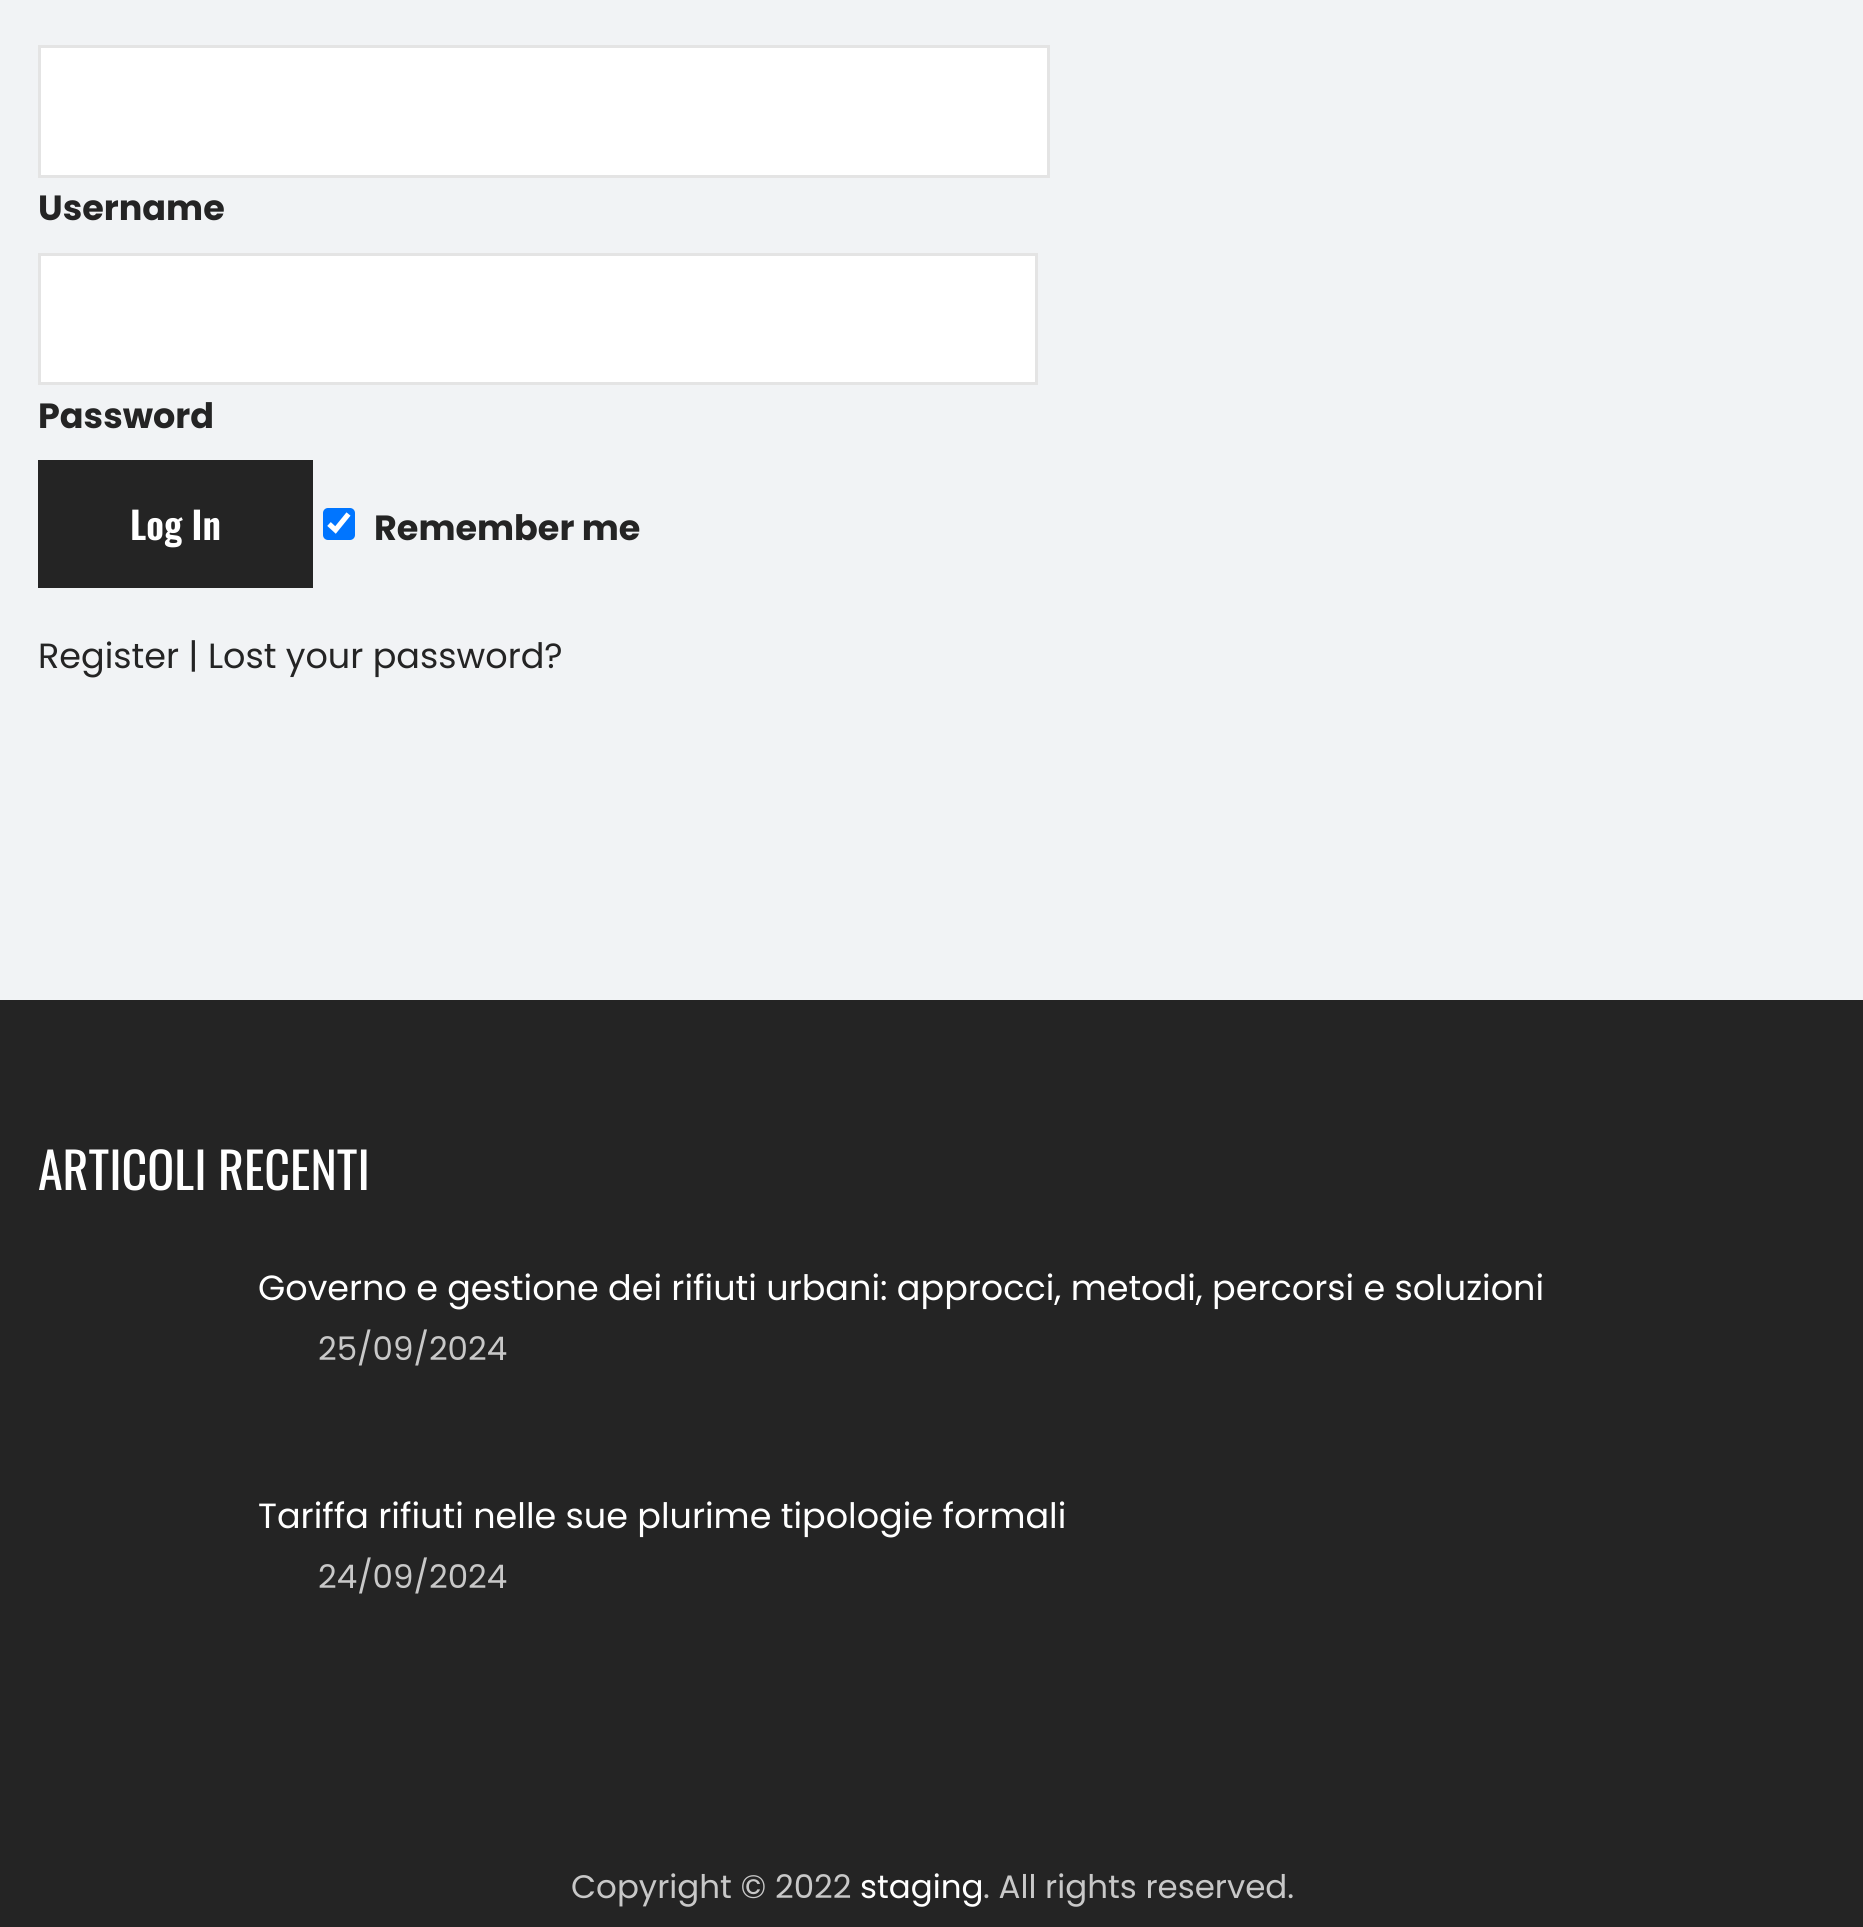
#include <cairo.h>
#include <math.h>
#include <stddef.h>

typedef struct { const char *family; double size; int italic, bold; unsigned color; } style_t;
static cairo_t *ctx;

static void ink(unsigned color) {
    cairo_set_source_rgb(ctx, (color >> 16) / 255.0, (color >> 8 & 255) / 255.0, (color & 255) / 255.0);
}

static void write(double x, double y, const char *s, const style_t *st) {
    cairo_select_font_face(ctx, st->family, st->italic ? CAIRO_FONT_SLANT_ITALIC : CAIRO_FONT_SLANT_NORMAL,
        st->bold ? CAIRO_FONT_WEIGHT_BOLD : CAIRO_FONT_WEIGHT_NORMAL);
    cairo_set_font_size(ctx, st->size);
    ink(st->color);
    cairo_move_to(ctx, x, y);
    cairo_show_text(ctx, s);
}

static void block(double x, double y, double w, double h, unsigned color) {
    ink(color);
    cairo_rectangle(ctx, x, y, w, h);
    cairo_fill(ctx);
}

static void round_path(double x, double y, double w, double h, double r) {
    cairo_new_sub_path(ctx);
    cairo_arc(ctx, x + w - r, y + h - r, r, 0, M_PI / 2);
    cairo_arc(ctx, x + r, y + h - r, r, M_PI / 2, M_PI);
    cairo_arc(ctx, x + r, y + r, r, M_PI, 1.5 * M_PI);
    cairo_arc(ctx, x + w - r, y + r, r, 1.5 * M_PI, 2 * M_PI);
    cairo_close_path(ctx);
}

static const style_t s1 = {"Poppins", 35, 0, 1, 0x242424};
static const style_t s2 = {"Oswald SemiBold", 37.5, 0, 0, 0xffffff};
static const style_t s3 = {"Poppins", 35, 0, 0, 0x242424};
static const style_t s4 = {"Oswald", 50, 0, 0, 0xffffff};
static const style_t s5 = {"Poppins", 35, 0, 0, 0xffffff};
static const style_t s6 = {"Poppins", 32.5, 0, 0, 0xc8c8c8};
static const style_t s7 = {"Poppins", 32.5, 0, 0, 0xffffff};

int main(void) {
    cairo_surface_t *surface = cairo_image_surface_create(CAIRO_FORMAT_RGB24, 1863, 1927);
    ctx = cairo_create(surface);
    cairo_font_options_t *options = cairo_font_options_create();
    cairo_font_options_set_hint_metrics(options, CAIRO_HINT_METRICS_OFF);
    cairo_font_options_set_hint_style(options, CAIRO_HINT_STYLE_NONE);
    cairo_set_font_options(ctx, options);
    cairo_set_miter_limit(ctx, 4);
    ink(0xf1f3f5);
    cairo_paint(ctx);
    ink(0xffffff);
    cairo_rectangle(ctx, 39.5, 46.5, 1009, 130);
    cairo_fill_preserve(ctx);
    ink(0xe4e4e4);
    cairo_set_line_width(ctx, 3);
    cairo_stroke(ctx);
    write(38, 220, "Username", &s1);
    ink(0xffffff);
    cairo_rectangle(ctx, 39.5, 254.5, 997, 129);
    cairo_fill_preserve(ctx);
    ink(0xe4e4e4);
    cairo_stroke(ctx);
    write(38, 428, "Password", &s1);
    block(38, 460, 275, 128, 0x242424);
    write(130, 540, "Log In", &s2);
    ink(0x0075ff);
    round_path(323, 508, 32, 32, 5);
    cairo_fill(ctx);
    cairo_new_path(ctx);
    cairo_move_to(ctx, 329, 524);
    cairo_line_to(ctx, 335.5, 530);
    cairo_line_to(ctx, 348.5, 514);
    ink(0xffffff);
    cairo_set_line_width(ctx, 5.2);
    cairo_stroke(ctx);
    write(374, 540, "Remember me", &s1);
    write(38, 668, "Register | Lost your password?", &s3);
    block(0, 1000, 1863, 927, 0x242424);
    write(38, 1190, "ARTICOLI RECENTI", &s4);
    write(258, 1300, "Governo e gestione dei rifiuti urbani: approcci, metodi, percorsi e soluzioni", &s5);
    write(318, 1360, "25/09/2024", &s6);
    write(258, 1528, "Tariffa rifiuti nelle sue plurime tipologie formali", &s5);
    write(318, 1588, "24/09/2024", &s6);
    write(571, 1898, "Copyright © 2022", &s6);
    write(860, 1898, "staging", &s7);
    write(983, 1898, ". All rights reserved.", &s6);
    cairo_surface_write_to_png(surface, "screenshot.png");
    cairo_font_options_destroy(options);
    cairo_destroy(ctx);
    cairo_surface_destroy(surface);
    return 0;
}
